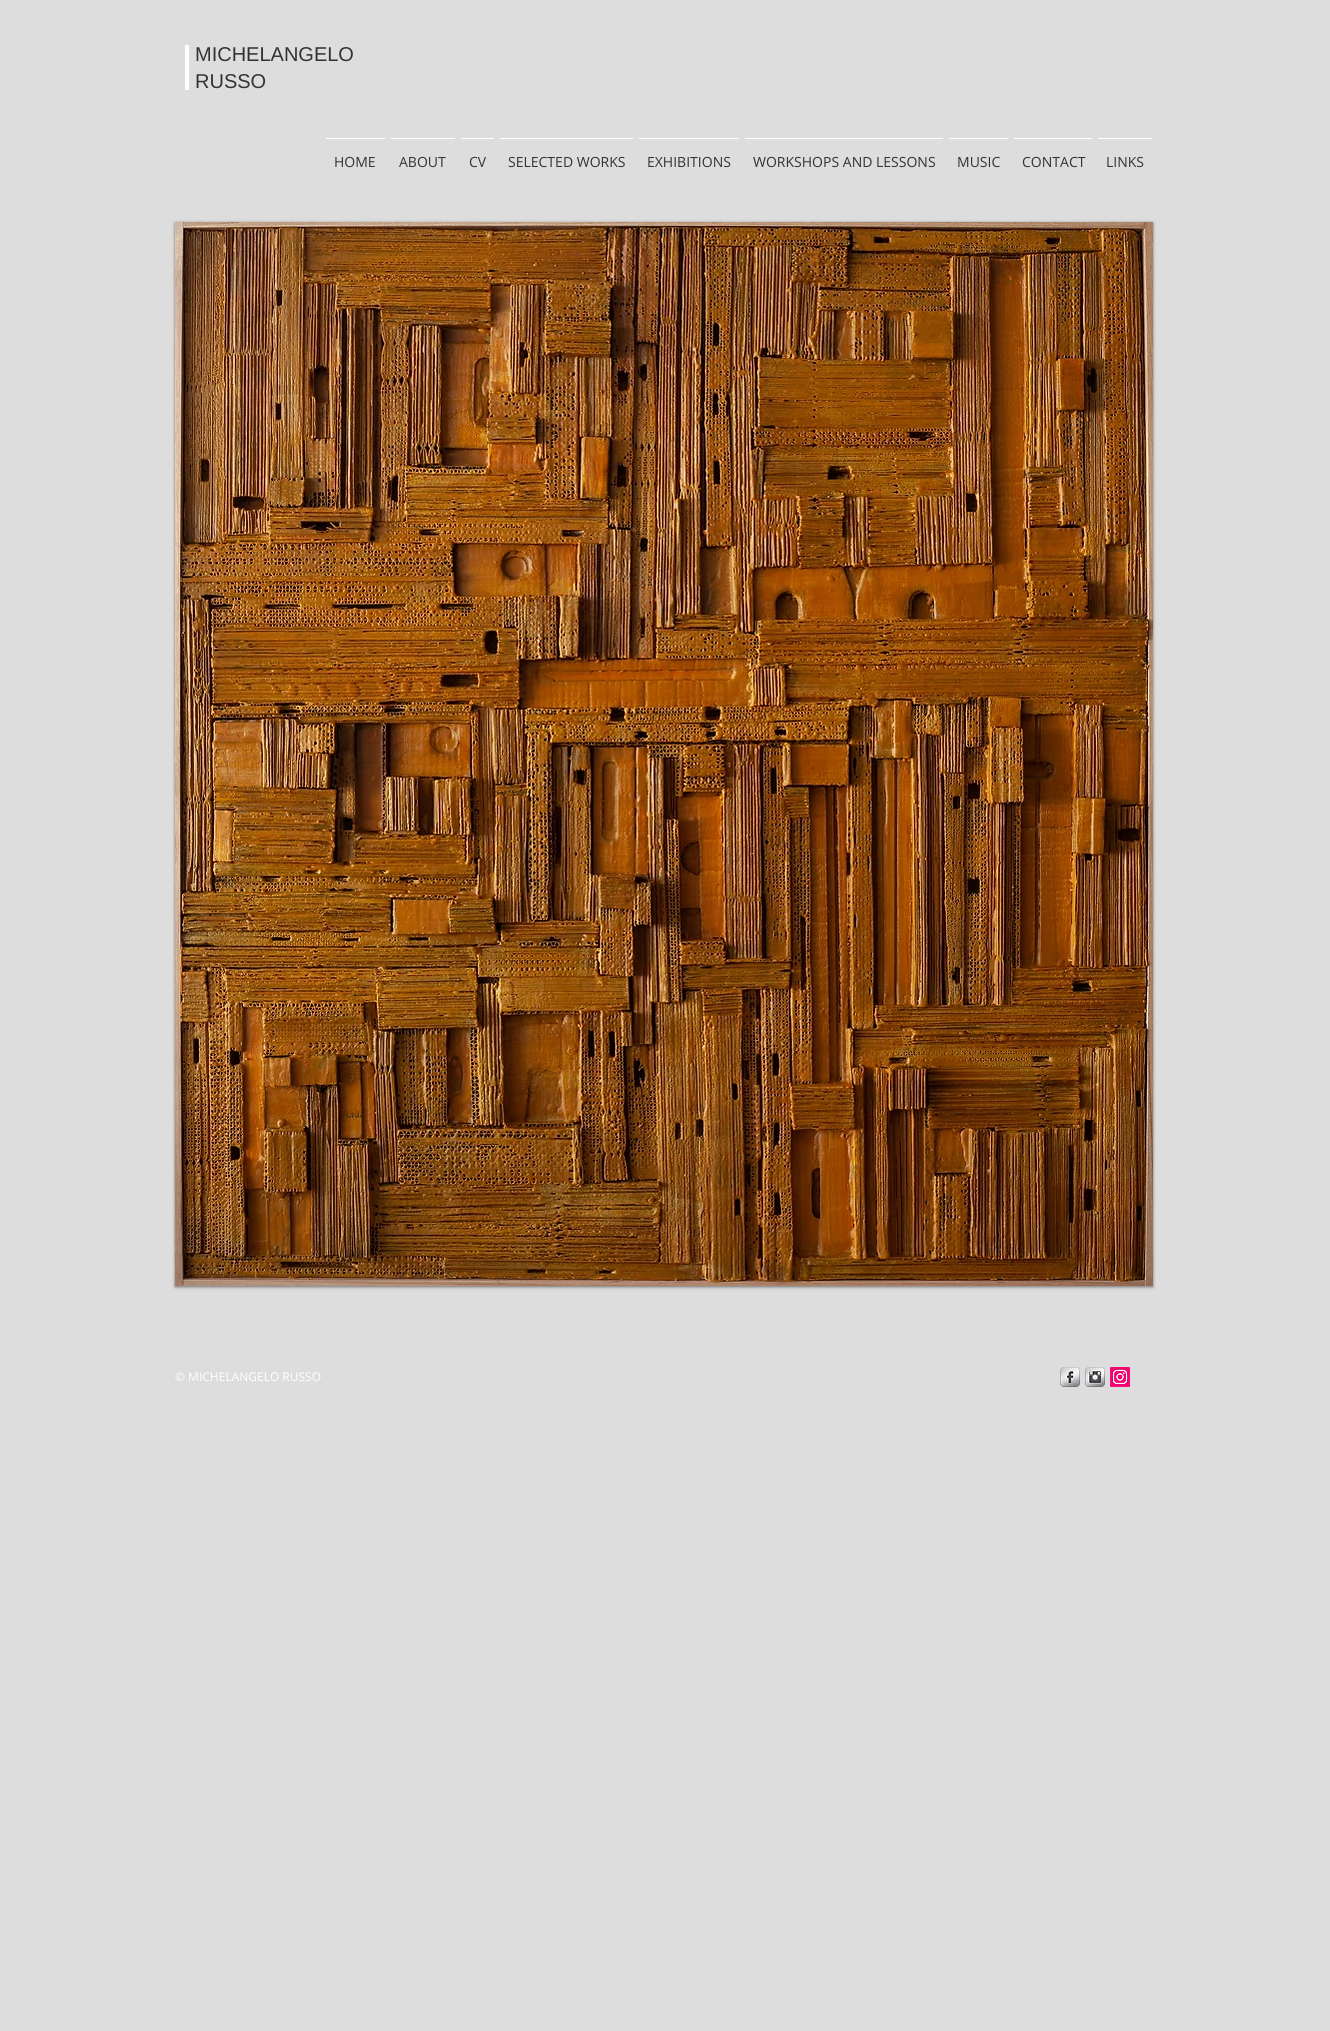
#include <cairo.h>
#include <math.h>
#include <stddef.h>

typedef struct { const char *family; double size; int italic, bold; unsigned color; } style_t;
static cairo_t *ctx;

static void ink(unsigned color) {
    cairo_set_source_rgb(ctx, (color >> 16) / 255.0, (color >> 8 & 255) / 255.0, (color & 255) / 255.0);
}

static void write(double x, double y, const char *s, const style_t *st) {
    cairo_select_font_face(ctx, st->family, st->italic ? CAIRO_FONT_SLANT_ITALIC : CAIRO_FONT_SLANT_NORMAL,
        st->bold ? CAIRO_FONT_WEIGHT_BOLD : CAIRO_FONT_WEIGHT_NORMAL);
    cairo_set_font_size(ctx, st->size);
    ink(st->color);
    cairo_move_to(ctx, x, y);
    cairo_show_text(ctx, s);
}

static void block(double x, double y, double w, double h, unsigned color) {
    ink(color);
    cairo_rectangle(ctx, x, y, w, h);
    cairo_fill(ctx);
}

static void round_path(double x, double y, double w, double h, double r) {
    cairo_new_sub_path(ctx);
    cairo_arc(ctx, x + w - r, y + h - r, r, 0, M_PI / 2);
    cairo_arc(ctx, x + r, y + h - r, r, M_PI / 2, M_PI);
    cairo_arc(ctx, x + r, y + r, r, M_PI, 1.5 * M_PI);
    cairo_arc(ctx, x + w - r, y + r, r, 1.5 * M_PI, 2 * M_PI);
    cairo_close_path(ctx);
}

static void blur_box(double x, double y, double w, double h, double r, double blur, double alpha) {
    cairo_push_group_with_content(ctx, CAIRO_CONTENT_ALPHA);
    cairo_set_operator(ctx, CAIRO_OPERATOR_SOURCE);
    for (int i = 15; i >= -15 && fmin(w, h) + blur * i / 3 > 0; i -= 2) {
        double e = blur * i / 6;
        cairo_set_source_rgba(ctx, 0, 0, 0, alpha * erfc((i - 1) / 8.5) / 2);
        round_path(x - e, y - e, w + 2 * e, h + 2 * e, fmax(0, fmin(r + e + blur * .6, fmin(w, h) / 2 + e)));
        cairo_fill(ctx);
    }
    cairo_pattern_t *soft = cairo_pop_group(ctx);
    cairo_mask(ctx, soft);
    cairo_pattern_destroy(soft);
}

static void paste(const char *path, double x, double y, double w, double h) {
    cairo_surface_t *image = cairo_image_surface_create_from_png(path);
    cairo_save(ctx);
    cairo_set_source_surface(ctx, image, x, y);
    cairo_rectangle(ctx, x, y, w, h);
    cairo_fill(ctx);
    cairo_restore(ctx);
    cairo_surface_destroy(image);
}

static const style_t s1 = {"Liberation Sans", 20, 0, 0, 0x333333};
static const style_t s2 = {"Open Sans", 14, 0, 0, 0x333333};
static const style_t s3 = {"Open Sans", 12, 0, 0, 0xffffff};

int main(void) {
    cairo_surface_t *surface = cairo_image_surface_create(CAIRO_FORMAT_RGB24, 1330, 2031);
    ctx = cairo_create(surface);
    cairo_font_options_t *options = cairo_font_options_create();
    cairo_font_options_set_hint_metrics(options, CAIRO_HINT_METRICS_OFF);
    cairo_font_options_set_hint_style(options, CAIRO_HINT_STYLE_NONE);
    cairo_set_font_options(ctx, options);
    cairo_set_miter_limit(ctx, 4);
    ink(0xdddddd);
    cairo_paint(ctx);
    block(185, 45, 4, 45, 0xffffff);
    write(195, 61, "MICHELANGELO", &s1);
    write(195, 88, "RUSSO", &s1);
    block(326, 138, 59, 1, 0xffffff);
    write(334, 167, "HOME", &s2);
    block(391, 138, 64, 1, 0xffffff);
    write(399, 167, "ABOUT", &s2);
    block(461, 138, 33, 1, 0xffffff);
    write(469, 167, "CV", &s2);
    block(500, 138, 133, 1, 0xffffff);
    write(508, 167, "SELECTED WORKS", &s2);
    block(639, 138, 100, 1, 0xffffff);
    write(647, 167, "EXHIBITIONS", &s2);
    block(745, 138, 198, 1, 0xffffff);
    write(753, 167, "WORKSHOPS AND LESSONS", &s2);
    block(949, 138, 59, 1, 0xffffff);
    write(957, 167, "MUSIC", &s2);
    block(1014, 138, 78, 1, 0xffffff);
    write(1022, 167, "CONTACT", &s2);
    block(1098, 138, 54, 1, 0xffffff);
    write(1106, 167, "LINKS", &s2);
    ink(0x000000);
    blur_box(175, 223, 978, 1064, 0, 1.5, 0.5);
    paste("pic1.png", 175, 222, 978, 1064);
    write(175, 1381, "© MICHELANGELO RUSSO", &s3);
    paste("pic2.png", 1060, 1367, 20, 20);
    paste("pic3.png", 1085, 1367, 20, 20);
    paste("pic4.png", 1110, 1367, 20, 20);
    cairo_surface_write_to_png(surface, "screenshot.png");
    cairo_font_options_destroy(options);
    cairo_destroy(ctx);
    cairo_surface_destroy(surface);
    return 0;
}
